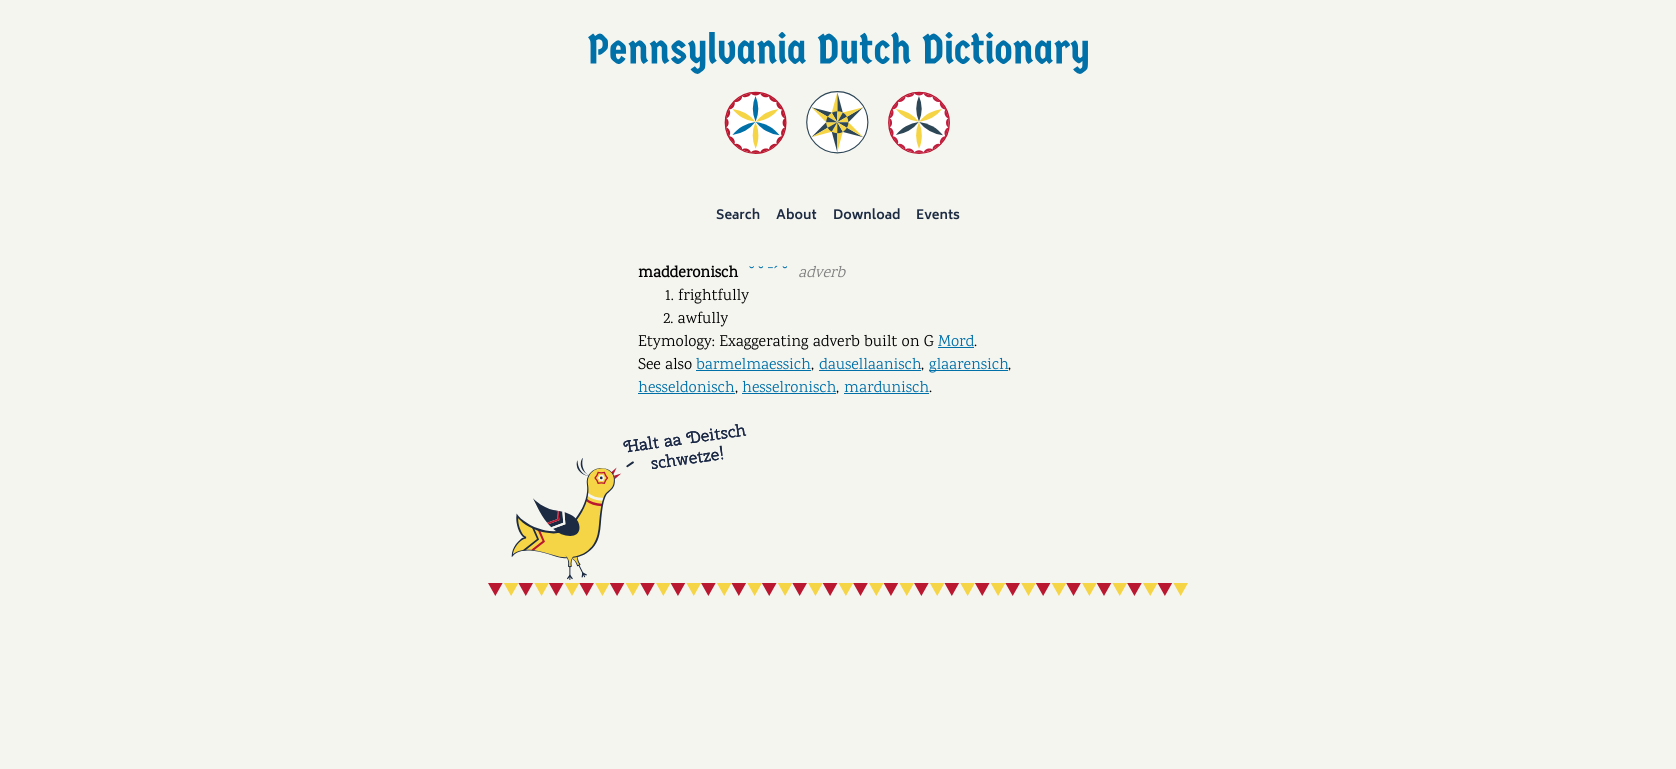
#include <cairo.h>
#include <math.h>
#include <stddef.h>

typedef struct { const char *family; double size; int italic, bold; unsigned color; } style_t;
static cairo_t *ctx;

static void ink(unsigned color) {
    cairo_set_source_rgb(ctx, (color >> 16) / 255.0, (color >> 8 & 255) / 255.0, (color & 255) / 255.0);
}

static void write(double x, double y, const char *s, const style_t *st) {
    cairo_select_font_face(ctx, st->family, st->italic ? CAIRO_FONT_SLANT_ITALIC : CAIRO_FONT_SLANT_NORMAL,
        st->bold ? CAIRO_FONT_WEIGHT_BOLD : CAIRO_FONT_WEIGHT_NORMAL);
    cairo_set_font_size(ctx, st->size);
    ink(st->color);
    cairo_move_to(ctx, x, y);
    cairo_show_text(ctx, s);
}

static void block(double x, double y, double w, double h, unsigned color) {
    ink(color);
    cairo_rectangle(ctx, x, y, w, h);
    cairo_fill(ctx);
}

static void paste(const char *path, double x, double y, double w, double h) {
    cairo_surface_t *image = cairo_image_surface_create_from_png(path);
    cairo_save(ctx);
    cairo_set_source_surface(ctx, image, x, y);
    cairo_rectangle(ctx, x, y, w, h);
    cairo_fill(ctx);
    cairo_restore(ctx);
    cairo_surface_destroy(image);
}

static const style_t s1 = {"Biryani", 12.75, 0, 1, 0x1c2b42};
static const style_t s2 = {"Karma", 16, 0, 1, 0x000000};
static const style_t s3 = {"Liberation Serif", 16, 0, 0, 0x0070a8};
static const style_t s4 = {"Karma", 16, 1, 0, 0x808080};
static const style_t s5 = {"Karma", 16, 0, 0, 0x000000};
static const style_t s6 = {"Karma", 16, 0, 0, 0x0070a8};

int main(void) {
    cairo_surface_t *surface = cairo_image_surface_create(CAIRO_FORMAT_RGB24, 1676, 769);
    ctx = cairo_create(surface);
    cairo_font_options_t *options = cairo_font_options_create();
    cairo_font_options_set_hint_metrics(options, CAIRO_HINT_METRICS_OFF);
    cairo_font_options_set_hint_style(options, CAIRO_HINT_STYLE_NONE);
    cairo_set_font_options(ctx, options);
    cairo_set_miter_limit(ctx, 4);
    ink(0xf5f5f0);
    cairo_paint(ctx);
    paste("pic1.png", 588, 32, 500, 122);
    write(716, 219, "Search", &s1);
    write(776, 219, "About", &s1);
    write(833, 219, "Download", &s1);
    write(916, 219, "Events", &s1);
    write(638, 277, "madderonisch", &s2);
    write(749, 277, "˘ ˘ ˉˊ ˘", &s3);
    write(798, 277, "adverb", &s4);
    write(665, 300, "1. frightfully", &s5);
    write(663, 323, "2. awfully", &s5);
    write(638, 346, "Etymology: Exaggerating adverb built on G", &s5);
    write(938, 346, "Mord", &s6);
    block(938, 347, 36, 1, 0x0070a8);
    write(974, 346, ".", &s5);
    write(638, 369, "See also", &s5);
    write(696, 369, "barmelmaessich", &s6);
    block(696, 370, 115, 1, 0x0070a8);
    write(811, 369, ",", &s5);
    write(819, 369, "dausellaanisch", &s6);
    block(819, 370, 102, 1, 0x0070a8);
    write(921, 369, ",", &s5);
    block(929, 370, 79, 1, 0x0070a8);
    write(929, 369, "glaarensich", &s6);
    write(1008, 369, ",", &s5);
    write(638, 392, "hesseldonisch", &s6);
    block(638, 393, 97, 1, 0x0070a8);
    write(735, 392, ",", &s5);
    write(742, 392, "hesselronisch", &s6);
    block(742, 393, 94, 1, 0x0070a8);
    write(836, 392, ",", &s5);
    write(844, 392, "mardunisch", &s6);
    block(844, 393, 85, 1, 0x0070a8);
    write(929, 392, ".", &s5);
    paste("pic2.png", 488, 424, 700, 172);
    cairo_surface_write_to_png(surface, "screenshot.png");
    cairo_font_options_destroy(options);
    cairo_destroy(ctx);
    cairo_surface_destroy(surface);
    return 0;
}
